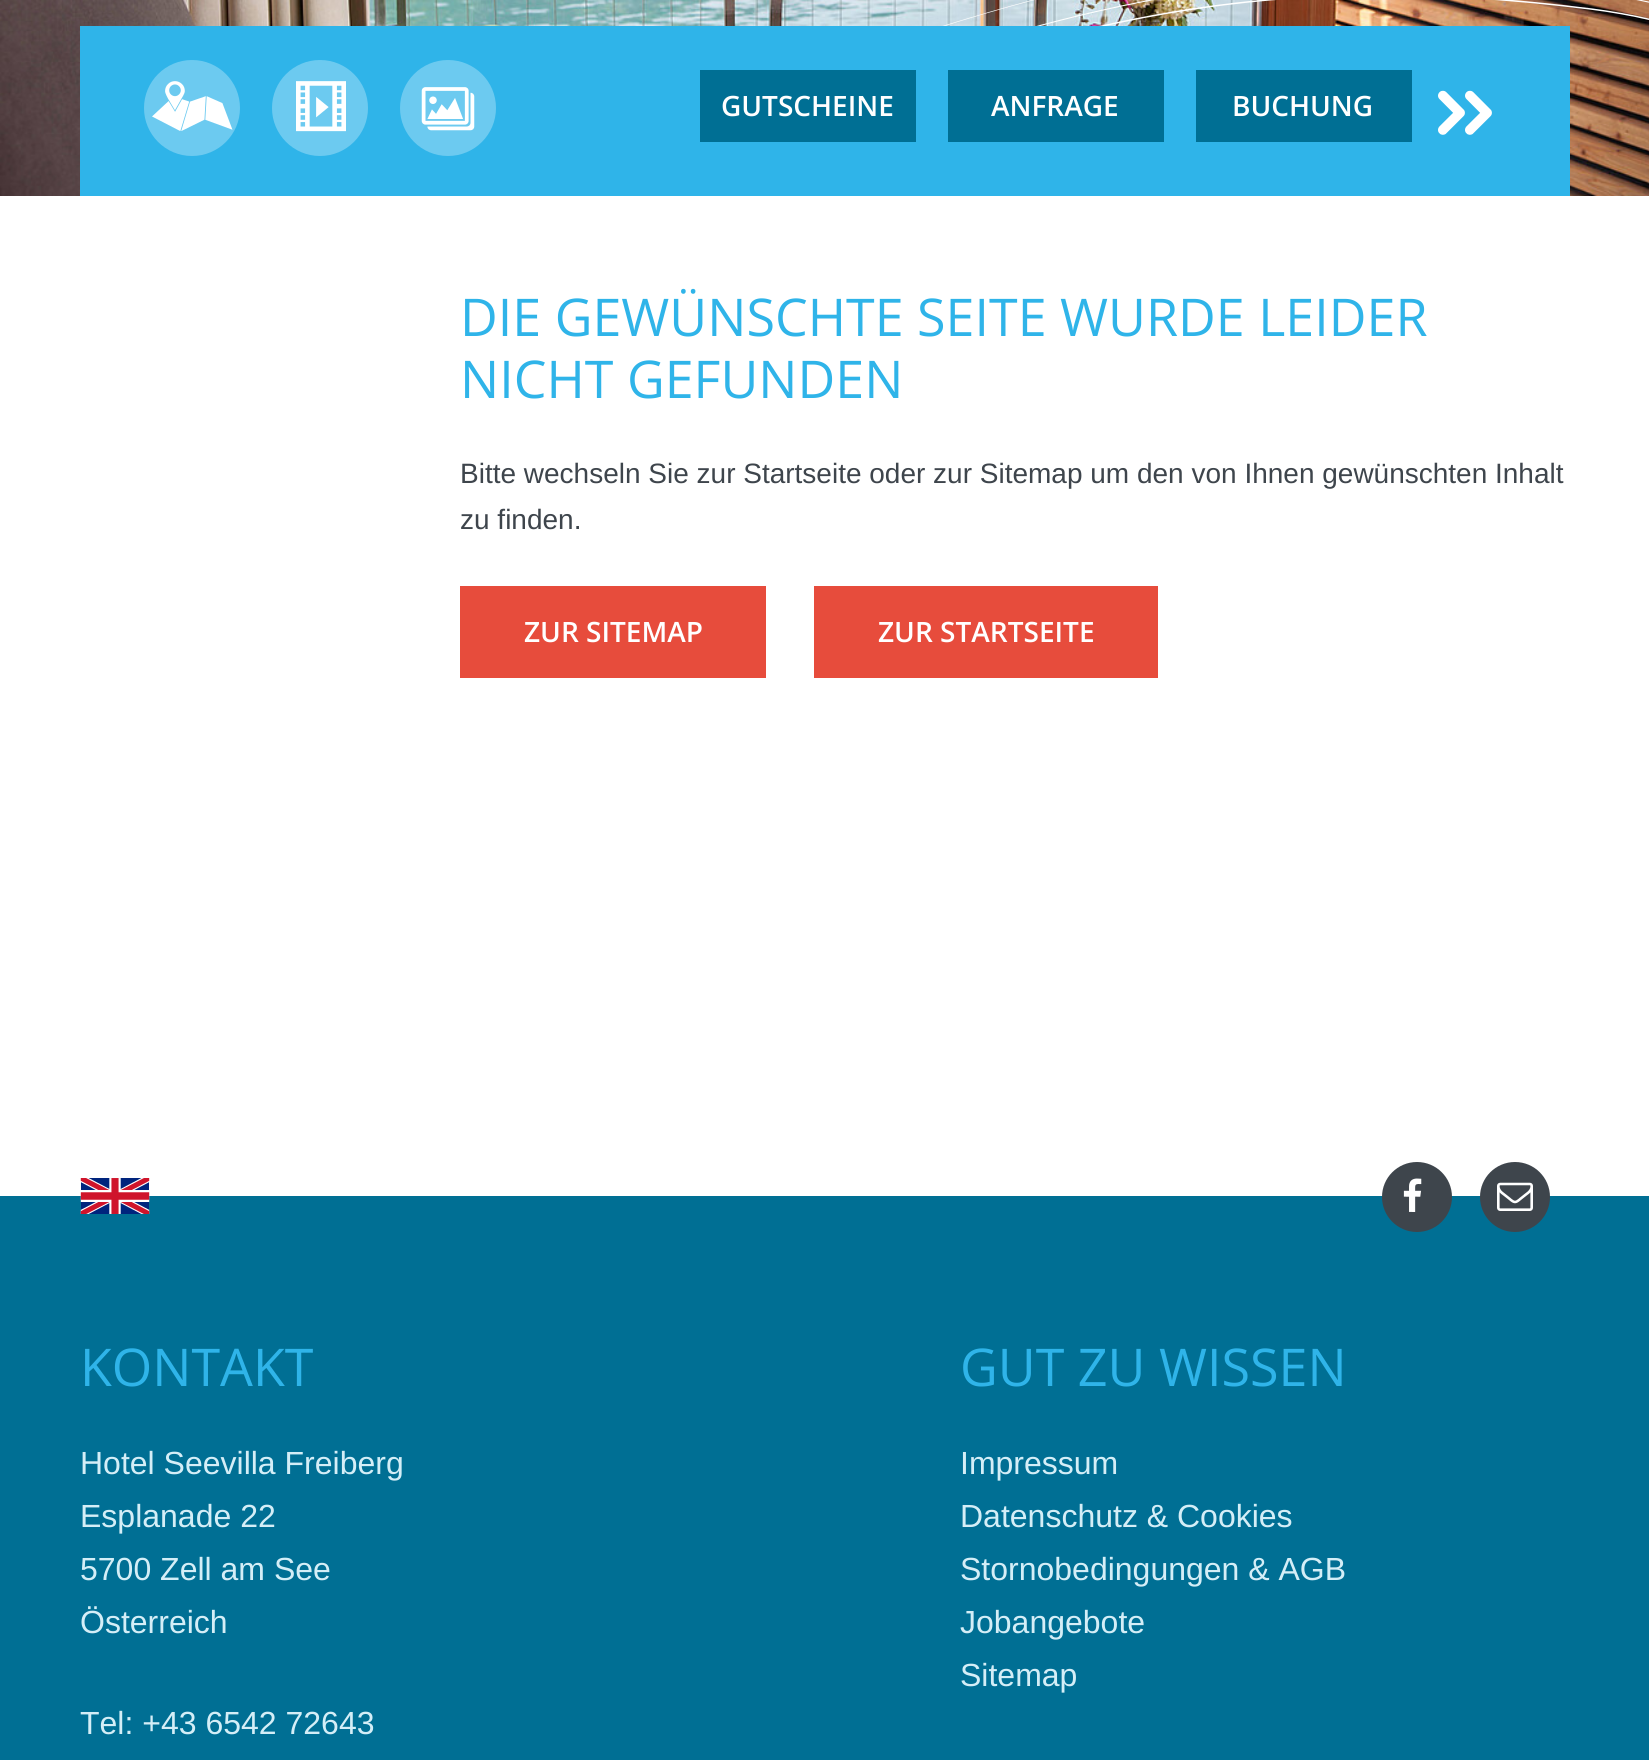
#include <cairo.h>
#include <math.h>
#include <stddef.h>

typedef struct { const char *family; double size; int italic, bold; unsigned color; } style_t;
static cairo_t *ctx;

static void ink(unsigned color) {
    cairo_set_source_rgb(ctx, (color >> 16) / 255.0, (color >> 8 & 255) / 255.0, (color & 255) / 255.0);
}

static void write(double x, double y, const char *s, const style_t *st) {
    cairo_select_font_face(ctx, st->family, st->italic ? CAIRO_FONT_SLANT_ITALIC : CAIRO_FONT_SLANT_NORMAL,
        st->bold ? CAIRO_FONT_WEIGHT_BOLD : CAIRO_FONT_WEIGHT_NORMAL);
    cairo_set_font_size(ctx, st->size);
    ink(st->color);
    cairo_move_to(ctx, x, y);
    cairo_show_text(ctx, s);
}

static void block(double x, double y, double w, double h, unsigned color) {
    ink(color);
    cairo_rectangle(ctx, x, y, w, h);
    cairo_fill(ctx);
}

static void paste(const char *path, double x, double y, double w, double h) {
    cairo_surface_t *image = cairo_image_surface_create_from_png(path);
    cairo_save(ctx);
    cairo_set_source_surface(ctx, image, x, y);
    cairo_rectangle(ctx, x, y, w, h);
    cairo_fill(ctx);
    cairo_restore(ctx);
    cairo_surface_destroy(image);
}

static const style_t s1 = {"Open Sans SemiBold", 28, 0, 0, 0xffffff};
static const style_t s2 = {"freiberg", 44, 0, 0, 0xffffff};
static const style_t s3 = {"Open Sans", 52, 0, 0, 0x2fb4e9};
static const style_t s4 = {"Liberation Sans", 28, 0, 0, 0x3e454c};
static const style_t s5 = {"freiberg", 36, 0, 0, 0xffffff};
static const style_t s6 = {"Liberation Sans", 32, 0, 0, 0xd4eef7};

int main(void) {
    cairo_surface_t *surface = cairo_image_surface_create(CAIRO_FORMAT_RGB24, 1649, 1760);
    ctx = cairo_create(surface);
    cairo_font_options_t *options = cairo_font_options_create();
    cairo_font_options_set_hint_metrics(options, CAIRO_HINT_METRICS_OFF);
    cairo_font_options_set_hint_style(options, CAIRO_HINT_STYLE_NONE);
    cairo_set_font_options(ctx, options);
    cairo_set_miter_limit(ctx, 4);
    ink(0xffffff);
    cairo_paint(ctx);
    paste("pic1.png", 0, 0, 1649, 196);
    paste("pic2.png", 942, 0, 707, 26);
    block(80, 26, 1490, 170, 0x2fb4e9);
    ink(0x6ccaf0);
    cairo_arc(ctx, 192, 108, 48, 0, 2 * M_PI);
    cairo_fill(ctx);
    paste("pic3.png", 152, 81, 81, 50);
    cairo_arc(ctx, 320, 108, 48, 0, 2 * M_PI);
    cairo_fill(ctx);
    paste("pic4.png", 296, 81, 50, 51);
    cairo_arc(ctx, 448, 108, 48, 0, 2 * M_PI);
    cairo_fill(ctx);
    paste("pic5.png", 421, 87, 54, 44);
    block(700, 70, 216, 72, 0x006f94);
    write(721, 116, "GUTSCHEINE", &s1);
    block(948, 70, 216, 72, 0x006f94);
    write(991, 116, "ANFRAGE", &s1);
    block(1196, 70, 216, 72, 0x006f94);
    write(1232, 116, "BUCHUNG", &s1);
    write(1438, 132, "≻≻", &s2);
    write(460, 336, "DIE GEWÜNSCHTE SEITE WURDE LEIDER", &s3);
    write(460, 398, "NICHT GEFUNDEN", &s3);
    write(460, 483, "Bitte wechseln Sie zur Startseite oder zur Sitemap um den von Ihnen gewünschten Inhalt", &s4);
    write(460, 529, "zu finden.", &s4);
    block(460, 586, 306, 92, 0xe74c3c);
    write(524, 642, "ZUR SITEMAP", &s1);
    block(814, 586, 344, 92, 0xe74c3c);
    write(878, 642, "ZUR STARTSEITE", &s1);
    block(0, 1196, 1649, 564, 0x006f94);
    paste("pic6.png", 80, 1178, 70, 36);
    ink(0x3e454c);
    cairo_arc(ctx, 1417, 1197, 35, 0, 2 * M_PI);
    cairo_fill(ctx);
    paste("pic7.png", 1403, 1178, 19, 34);
    cairo_arc(ctx, 1515, 1197, 35, 0, 2 * M_PI);
    cairo_fill(ctx);
    write(1497, 1211, "✉", &s5);
    write(80, 1386, "KONTAKT", &s3);
    write(80, 1474, "Hotel Seevilla Freiberg", &s6);
    write(80, 1527, "Esplanade 22", &s6);
    write(80, 1580, "5700 Zell am See", &s6);
    write(80, 1633, "Österreich", &s6);
    write(80, 1734, "Tel: +43 6542 72643", &s6);
    write(960, 1386, "GUT ZU WISSEN", &s3);
    write(960, 1474, "Impressum", &s6);
    write(960, 1527, "Datenschutz & Cookies", &s6);
    write(960, 1580, "Stornobedingungen & AGB", &s6);
    write(960, 1633, "Jobangebote", &s6);
    write(960, 1686, "Sitemap", &s6);
    cairo_surface_write_to_png(surface, "screenshot.png");
    cairo_font_options_destroy(options);
    cairo_destroy(ctx);
    cairo_surface_destroy(surface);
    return 0;
}
